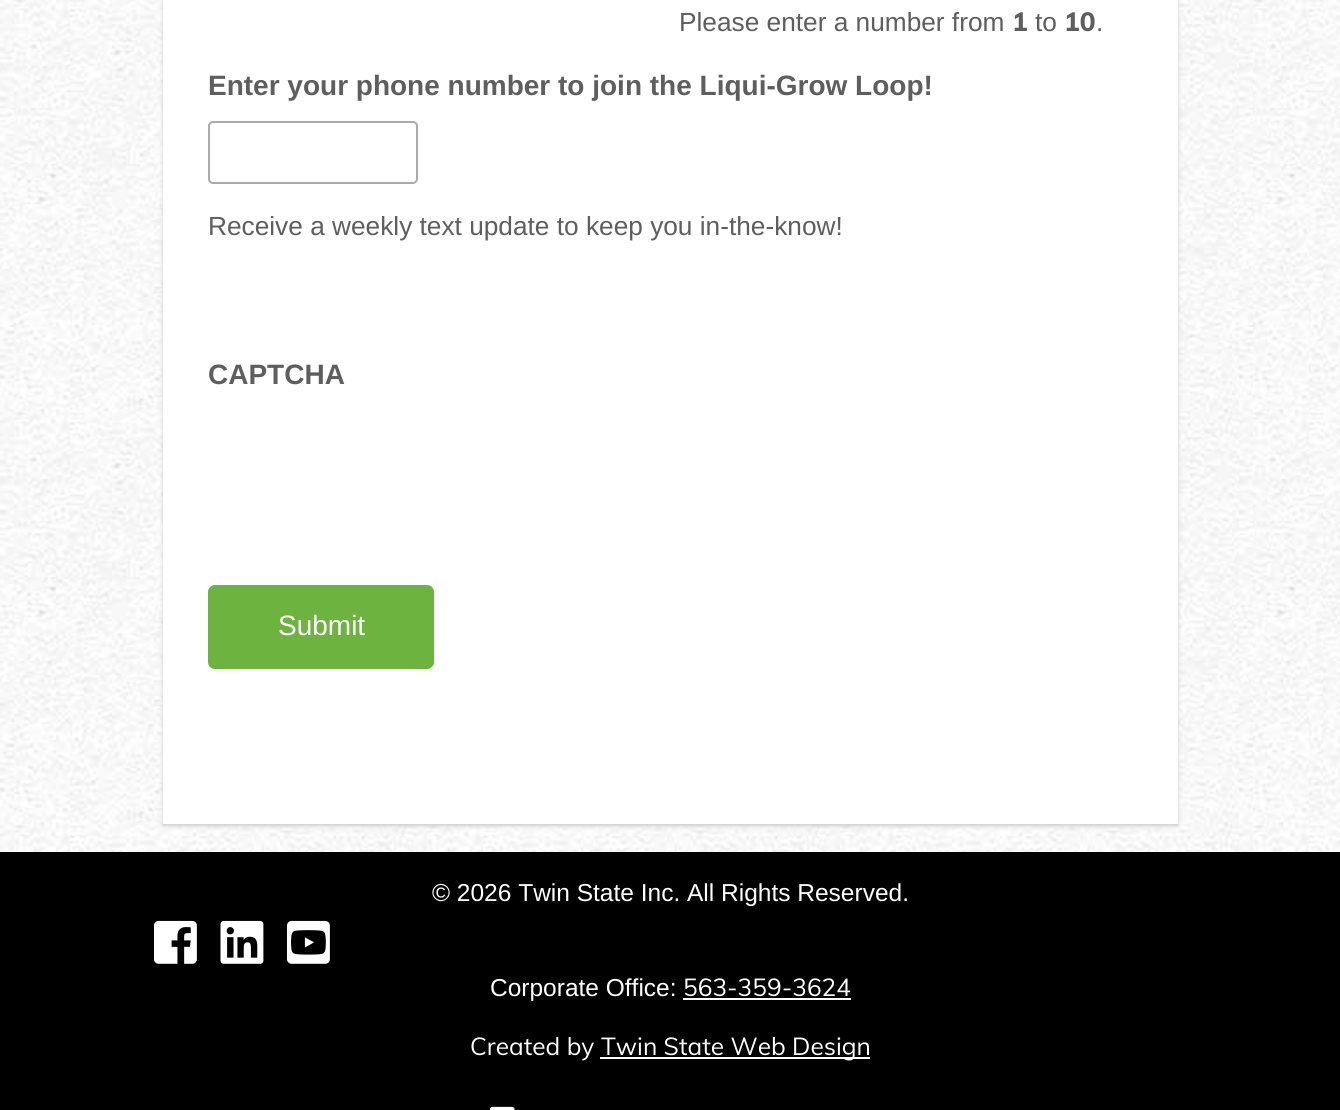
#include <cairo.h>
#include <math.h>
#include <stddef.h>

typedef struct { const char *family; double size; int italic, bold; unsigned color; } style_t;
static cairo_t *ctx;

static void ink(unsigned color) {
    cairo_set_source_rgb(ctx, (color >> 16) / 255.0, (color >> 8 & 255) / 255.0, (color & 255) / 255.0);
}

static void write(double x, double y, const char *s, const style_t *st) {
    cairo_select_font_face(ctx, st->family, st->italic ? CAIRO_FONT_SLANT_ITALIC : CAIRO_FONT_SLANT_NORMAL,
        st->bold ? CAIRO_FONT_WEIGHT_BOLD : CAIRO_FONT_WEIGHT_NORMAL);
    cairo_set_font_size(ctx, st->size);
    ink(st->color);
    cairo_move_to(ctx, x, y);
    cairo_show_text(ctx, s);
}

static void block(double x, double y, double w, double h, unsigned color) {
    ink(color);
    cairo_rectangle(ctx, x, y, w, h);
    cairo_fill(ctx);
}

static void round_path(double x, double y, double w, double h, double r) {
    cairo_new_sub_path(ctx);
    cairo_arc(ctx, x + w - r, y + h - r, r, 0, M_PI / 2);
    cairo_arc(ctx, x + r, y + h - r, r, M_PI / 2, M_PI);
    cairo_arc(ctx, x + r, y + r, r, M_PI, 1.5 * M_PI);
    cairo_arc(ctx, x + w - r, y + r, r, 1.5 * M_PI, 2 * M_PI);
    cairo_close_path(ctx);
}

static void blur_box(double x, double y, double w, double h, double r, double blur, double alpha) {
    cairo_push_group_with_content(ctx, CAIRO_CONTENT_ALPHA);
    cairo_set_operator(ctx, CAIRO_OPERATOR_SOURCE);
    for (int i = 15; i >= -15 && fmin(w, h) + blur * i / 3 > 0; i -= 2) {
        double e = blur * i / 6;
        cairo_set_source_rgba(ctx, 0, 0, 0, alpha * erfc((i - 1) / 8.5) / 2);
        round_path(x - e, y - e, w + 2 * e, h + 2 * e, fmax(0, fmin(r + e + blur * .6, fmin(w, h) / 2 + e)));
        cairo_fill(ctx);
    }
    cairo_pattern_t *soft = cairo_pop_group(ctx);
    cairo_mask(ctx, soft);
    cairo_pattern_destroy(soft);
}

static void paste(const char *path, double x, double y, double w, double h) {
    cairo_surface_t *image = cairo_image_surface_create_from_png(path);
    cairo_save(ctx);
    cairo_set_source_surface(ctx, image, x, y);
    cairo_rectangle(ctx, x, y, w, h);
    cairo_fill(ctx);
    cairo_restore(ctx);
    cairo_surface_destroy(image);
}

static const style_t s1 = {"Liberation Sans", 26.25, 0, 0, 0x5e5e5e};
static const style_t s2 = {"Muli ExtraBold", 26.25, 0, 0, 0x5e5e5e};
static const style_t s3 = {"Liberation Sans", 28, 0, 1, 0x5e5e5e};
static const style_t s4 = {"Liberation Sans", 28, 0, 0, 0xffffff};
static const style_t s5 = {"Liberation Sans", 24.5, 0, 0, 0xffffff};
static const style_t s6 = {"Muli", 24.5, 0, 0, 0xffffff};

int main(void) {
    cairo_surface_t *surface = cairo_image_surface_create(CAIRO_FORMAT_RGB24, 1340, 1110);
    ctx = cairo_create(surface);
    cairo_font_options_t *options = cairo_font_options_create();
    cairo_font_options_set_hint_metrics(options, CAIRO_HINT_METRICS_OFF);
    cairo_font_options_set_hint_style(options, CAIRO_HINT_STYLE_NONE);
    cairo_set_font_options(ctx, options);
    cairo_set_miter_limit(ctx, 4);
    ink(0xffffff);
    cairo_paint(ctx);
    paste("pic1.png", 0, 0, 1340, 852);
    ink(0xcccccc);
    blur_box(163, -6, 1015, 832, 0, 2, 1);
    block(163, 0, 1015, 824, 0xffffff);
    write(679, 31, "Please enter a number from", &s1);
    write(1012, 31, "1", &s2);
    write(1035, 31, "to", &s1);
    write(1064, 31, "10", &s2);
    write(1096, 31, ".", &s1);
    write(208, 95, "Enter your phone number to join the Liqui-Grow Loop!", &s3);
    round_path(209, 122, 208, 61, 4);
    ink(0xaaaaaa);
    cairo_stroke(ctx);
    write(208, 235, "Receive a weekly text update to keep you in-the-know!", &s1);
    write(208, 384, "CAPTCHA", &s3);
    ink(0x6cb33f);
    round_path(208, 585, 226, 84, 7);
    cairo_fill(ctx);
    write(278, 635, "Submit", &s4);
    block(0, 852, 1340, 258, 0x000000);
    write(432, 901, "© 2026 Twin State Inc. All Rights Reserved.", &s5);
    paste("pic2.png", 154, 920, 43, 44);
    paste("pic3.png", 220, 920, 44, 44);
    paste("pic4.png", 287, 920, 43, 44);
    write(490, 996, "Corporate Office:", &s5);
    write(683, 996, "563-359-3624", &s6);
    block(683, 998, 168, 2, 0xffffff);
    write(470, 1055, "Created by", &s6);
    block(600, 1057, 270, 2, 0xffffff);
    write(601, 1055, "Twin State Web Design", &s6);
    paste("pic5.png", 490, 1106, 25, 4);
    cairo_surface_write_to_png(surface, "screenshot.png");
    cairo_font_options_destroy(options);
    cairo_destroy(ctx);
    cairo_surface_destroy(surface);
    return 0;
}
